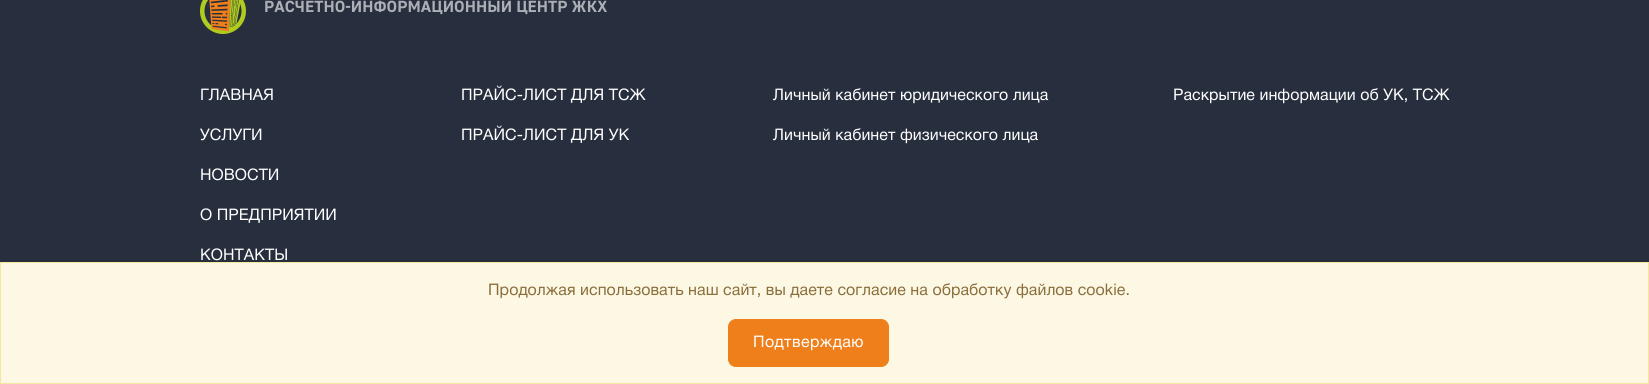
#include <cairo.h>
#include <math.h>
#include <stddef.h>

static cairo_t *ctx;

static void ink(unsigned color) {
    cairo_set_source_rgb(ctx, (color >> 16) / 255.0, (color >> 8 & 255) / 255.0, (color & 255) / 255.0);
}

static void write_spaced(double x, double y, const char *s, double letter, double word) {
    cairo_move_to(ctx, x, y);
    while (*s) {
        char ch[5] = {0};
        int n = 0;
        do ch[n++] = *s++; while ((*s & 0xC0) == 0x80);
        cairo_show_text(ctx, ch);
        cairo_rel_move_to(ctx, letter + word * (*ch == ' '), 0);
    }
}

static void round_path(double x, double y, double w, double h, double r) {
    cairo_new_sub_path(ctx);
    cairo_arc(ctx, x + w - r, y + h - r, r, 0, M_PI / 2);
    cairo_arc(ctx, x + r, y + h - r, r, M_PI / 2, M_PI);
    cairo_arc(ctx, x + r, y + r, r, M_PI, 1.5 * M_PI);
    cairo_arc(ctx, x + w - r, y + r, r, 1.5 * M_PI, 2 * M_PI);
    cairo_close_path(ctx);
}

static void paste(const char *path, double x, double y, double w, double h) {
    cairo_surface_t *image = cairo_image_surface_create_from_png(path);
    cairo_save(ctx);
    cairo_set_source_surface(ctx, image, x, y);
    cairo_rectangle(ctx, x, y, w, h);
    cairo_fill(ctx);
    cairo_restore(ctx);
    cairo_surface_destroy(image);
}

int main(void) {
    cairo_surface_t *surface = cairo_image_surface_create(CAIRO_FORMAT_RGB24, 1649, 384);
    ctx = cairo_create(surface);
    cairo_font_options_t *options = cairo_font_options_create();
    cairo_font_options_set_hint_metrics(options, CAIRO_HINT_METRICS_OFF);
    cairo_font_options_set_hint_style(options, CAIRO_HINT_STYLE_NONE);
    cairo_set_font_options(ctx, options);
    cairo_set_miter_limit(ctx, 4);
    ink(0x272e3d);
    cairo_paint(ctx);
    paste("pic1.png", 200, 0, 46, 34);
    cairo_select_font_face(ctx, "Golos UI", CAIRO_FONT_SLANT_NORMAL, CAIRO_FONT_WEIGHT_BOLD);
    cairo_set_font_size(ctx, 16);
    ink(0xacb0b6);
    write_spaced(264, 12, "РАСЧЕТНО-ИНФОРМАЦИОННЫЙ ЦЕНТР ЖКХ", 0.05, 0);
    cairo_select_font_face(ctx, "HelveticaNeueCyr", CAIRO_FONT_SLANT_NORMAL, CAIRO_FONT_WEIGHT_NORMAL);
    ink(0xffffff);
    write_spaced(200, 100, "ГЛАВНАЯ", 0.05, 0);
    write_spaced(200, 140, "УСЛУГИ", 0.05, 0);
    write_spaced(200, 180, "НОВОСТИ", 0.05, 0);
    write_spaced(200, 220, "О ПРЕДПРИЯТИИ", 0.05, 0);
    write_spaced(200, 260, "КОНТАКТЫ", 0.05, 0);
    write_spaced(461, 100, "ПРАЙС-ЛИСТ ДЛЯ ТСЖ", 0.05, 0);
    write_spaced(461, 140, "ПРАЙС-ЛИСТ ДЛЯ УК", 0.05, 0);
    write_spaced(773, 100, "Личный кабинет юридического лица", 0.05, 0);
    write_spaced(773, 140, "Личный кабинет физического лица", 0.05, 0);
    write_spaced(1173, 100, "Раскрытие информации об УК, ТСЖ", 0.05, 0);
    ink(0xfcf8e3);
    cairo_rectangle(ctx, 0.5, 262.5, 1648, 121);
    cairo_fill_preserve(ctx);
    ink(0xf5e79e);
    cairo_set_line_width(ctx, 1);
    cairo_stroke(ctx);
    ink(0x8a6d3b);
    write_spaced(488, 295, "Продолжая использовать наш сайт, вы даете согласие на обработку файлов cookie.", 0.05, 0);
    ink(0xef7f1a);
    round_path(728.5, 319.5, 160, 47, 7.5);
    cairo_fill_preserve(ctx);
    cairo_stroke(ctx);
    ink(0xffffff);
    write_spaced(753, 347, "Подтверждаю", 0.4, 0);
    cairo_surface_write_to_png(surface, "screenshot.png");
    cairo_font_options_destroy(options);
    cairo_destroy(ctx);
    cairo_surface_destroy(surface);
    return 0;
}
